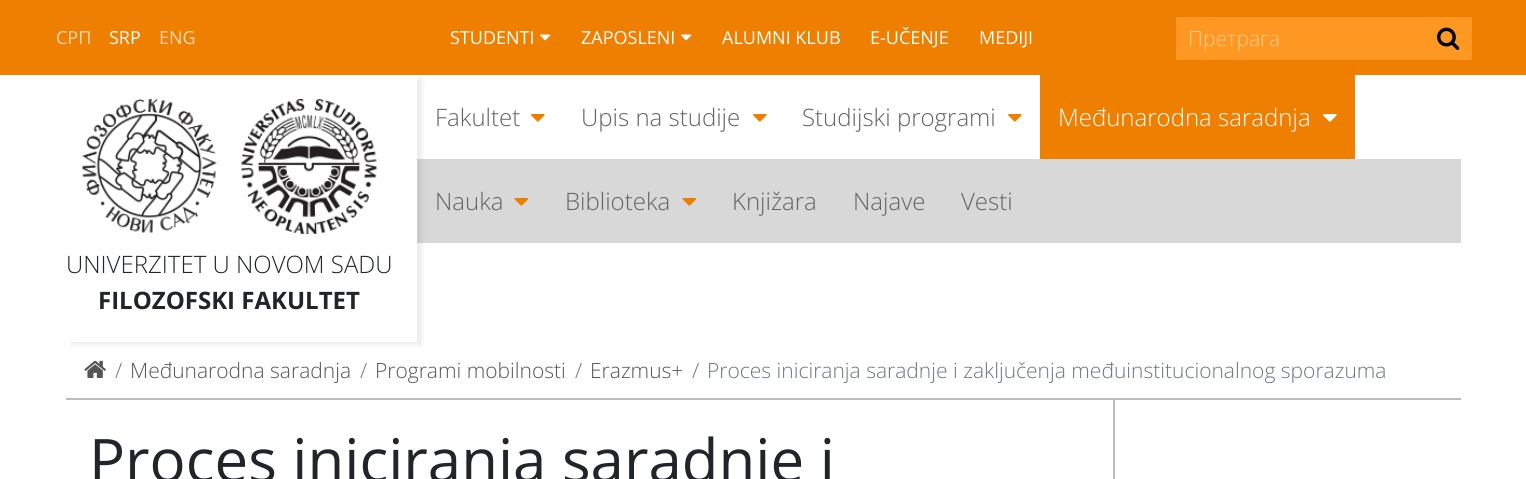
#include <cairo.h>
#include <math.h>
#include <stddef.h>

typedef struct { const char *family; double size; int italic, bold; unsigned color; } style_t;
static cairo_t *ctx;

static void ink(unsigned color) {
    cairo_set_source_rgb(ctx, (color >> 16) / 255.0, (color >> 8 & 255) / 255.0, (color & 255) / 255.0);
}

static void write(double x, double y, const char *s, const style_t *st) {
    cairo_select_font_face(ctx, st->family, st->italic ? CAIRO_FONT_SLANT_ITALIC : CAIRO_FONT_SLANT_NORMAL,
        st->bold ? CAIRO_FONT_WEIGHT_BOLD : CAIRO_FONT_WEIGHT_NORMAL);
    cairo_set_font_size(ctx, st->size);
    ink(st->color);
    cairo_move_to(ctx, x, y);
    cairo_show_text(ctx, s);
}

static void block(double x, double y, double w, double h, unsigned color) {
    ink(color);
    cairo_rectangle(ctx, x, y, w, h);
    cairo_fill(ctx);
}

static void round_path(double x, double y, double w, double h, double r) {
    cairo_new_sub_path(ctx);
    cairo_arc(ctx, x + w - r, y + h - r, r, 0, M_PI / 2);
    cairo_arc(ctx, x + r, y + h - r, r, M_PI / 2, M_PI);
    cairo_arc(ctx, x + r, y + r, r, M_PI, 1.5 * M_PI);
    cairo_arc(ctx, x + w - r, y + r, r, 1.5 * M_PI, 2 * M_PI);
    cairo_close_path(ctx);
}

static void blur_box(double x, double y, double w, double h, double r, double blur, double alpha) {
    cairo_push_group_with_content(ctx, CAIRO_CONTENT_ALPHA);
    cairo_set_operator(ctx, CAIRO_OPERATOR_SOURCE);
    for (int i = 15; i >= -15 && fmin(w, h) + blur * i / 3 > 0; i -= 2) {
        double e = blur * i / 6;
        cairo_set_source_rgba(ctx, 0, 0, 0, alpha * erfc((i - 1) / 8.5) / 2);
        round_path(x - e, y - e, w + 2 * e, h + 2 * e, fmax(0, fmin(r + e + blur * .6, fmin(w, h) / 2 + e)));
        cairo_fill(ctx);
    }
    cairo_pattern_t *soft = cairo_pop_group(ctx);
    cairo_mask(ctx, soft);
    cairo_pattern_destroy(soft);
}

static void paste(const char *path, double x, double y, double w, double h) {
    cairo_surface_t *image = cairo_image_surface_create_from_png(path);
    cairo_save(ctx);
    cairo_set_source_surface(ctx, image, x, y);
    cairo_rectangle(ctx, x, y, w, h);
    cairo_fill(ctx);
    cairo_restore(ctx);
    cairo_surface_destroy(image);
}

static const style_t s1 = {"Open Sans", 18, 0, 0, 0xfad9b3};
static const style_t s2 = {"Open Sans", 18, 0, 0, 0xffffff};
static const style_t s3 = {"Open Sans Light", 21, 0, 0, 0xffcc91};
static const style_t s4 = {"Open Sans Light", 24, 0, 0, 0x646363};
static const style_t s5 = {"Open Sans Light", 24, 0, 0, 0xffffff};
static const style_t s6 = {"Open Sans Light", 24, 0, 0, 0x212529};
static const style_t s7 = {"Open Sans", 24, 0, 1, 0x212529};
static const style_t s8 = {"Open Sans Light", 21, 0, 0, 0x6c757d};
static const style_t s9 = {"Open Sans Light", 21, 0, 0, 0x555555};
static const style_t s10 = {"Open Sans", 60, 0, 0, 0x212529};

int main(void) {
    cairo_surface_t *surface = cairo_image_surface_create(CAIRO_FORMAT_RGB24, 1526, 479);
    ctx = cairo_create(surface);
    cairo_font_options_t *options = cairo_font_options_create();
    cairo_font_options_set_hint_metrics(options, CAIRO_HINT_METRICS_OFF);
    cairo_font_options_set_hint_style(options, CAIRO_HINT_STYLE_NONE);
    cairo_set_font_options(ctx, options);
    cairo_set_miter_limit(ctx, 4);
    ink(0xffffff);
    cairo_paint(ctx);
    block(0, 0, 1526, 75, 0xee7f00);
    write(56, 44, "СРП", &s1);
    write(109, 44, "SRP", &s2);
    write(159, 44, "ENG", &s1);
    write(450, 44, "STUDENTI", &s2);
    paste("pic1.png", 540, 34, 11, 7);
    write(581, 44, "ZAPOSLENI", &s2);
    paste("pic1.png", 681, 34, 11, 7);
    write(722, 44, "ALUMNI KLUB", &s2);
    write(870, 44, "E-UČENJE", &s2);
    write(979, 44, "MEDIJI", &s2);
    block(1176, 17, 296, 43, 0xff9822);
    write(1188, 46, "Претрага", &s3);
    paste("pic2.png", 1437, 27, 23, 23);
    write(435, 126, "Fakultet", &s4);
    paste("pic3.png", 531, 114, 14, 8);
    write(581, 126, "Upis na studije", &s4);
    paste("pic3.png", 753, 114, 14, 8);
    write(802, 126, "Studijski programi", &s4);
    paste("pic3.png", 1008, 114, 14, 8);
    block(1040, 75, 315, 84, 0xee7f00);
    write(1058, 126, "Međunarodna saradnja", &s5);
    paste("pic4.png", 1323, 114, 14, 8);
    block(417, 159, 1044, 84, 0xd8d8d8);
    write(435, 210, "Nauka", &s4);
    paste("pic5.png", 514, 198, 15, 8);
    write(565, 210, "Biblioteka", &s4);
    paste("pic5.png", 682, 198, 15, 8);
    write(732, 210, "Knjižara", &s4);
    write(853, 210, "Najave", &s4);
    write(961, 210, "Vesti", &s4);
    cairo_save(ctx);
    cairo_set_fill_rule(ctx, CAIRO_FILL_RULE_EVEN_ODD);
    cairo_new_path(ctx);
    cairo_move_to(ctx, 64, 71);
    cairo_line_to(ctx, 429, 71);
    cairo_line_to(ctx, 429, 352);
    cairo_line_to(ctx, 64, 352);
    cairo_close_path(ctx);
    cairo_move_to(ctx, 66, 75);
    cairo_line_to(ctx, 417, 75);
    cairo_line_to(ctx, 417, 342);
    cairo_line_to(ctx, 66, 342);
    cairo_close_path(ctx);
    cairo_clip(ctx);
    ink(0x000000);
    blur_box(71, 78, 351, 267, 0, 2, 0.07);
    cairo_restore(ctx);
    paste("pic6.png", 82, 99, 135, 134);
    paste("pic7.png", 241, 99, 136, 135);
    write(66, 273, "UNIVERZITET U NOVOM SADU", &s6);
    write(98, 309, "FILOZOFSKI FAKULTET", &s7);
    block(66, 398, 1395, 2, 0xbcbcbc);
    paste("pic8.png", 84, 360, 22, 18);
    write(115, 378, "/", &s8);
    write(130, 378, "Međunarodna saradnja", &s9);
    write(360, 378, "/", &s8);
    write(375, 378, "Programi mobilnosti", &s9);
    write(575, 378, "/", &s8);
    write(590, 378, "Erazmus+", &s9);
    write(692, 378, "/", &s8);
    write(707, 378, "Proces iniciranja saradnje i zaključenja međuinstitucionalnog sporazuma", &s8);
    write(89, 482, "Proces iniciranja saradnje i", &s10);
    block(1113, 399, 2, 80, 0xbcbcbc);
    cairo_surface_write_to_png(surface, "screenshot.png");
    cairo_font_options_destroy(options);
    cairo_destroy(ctx);
    cairo_surface_destroy(surface);
    return 0;
}
